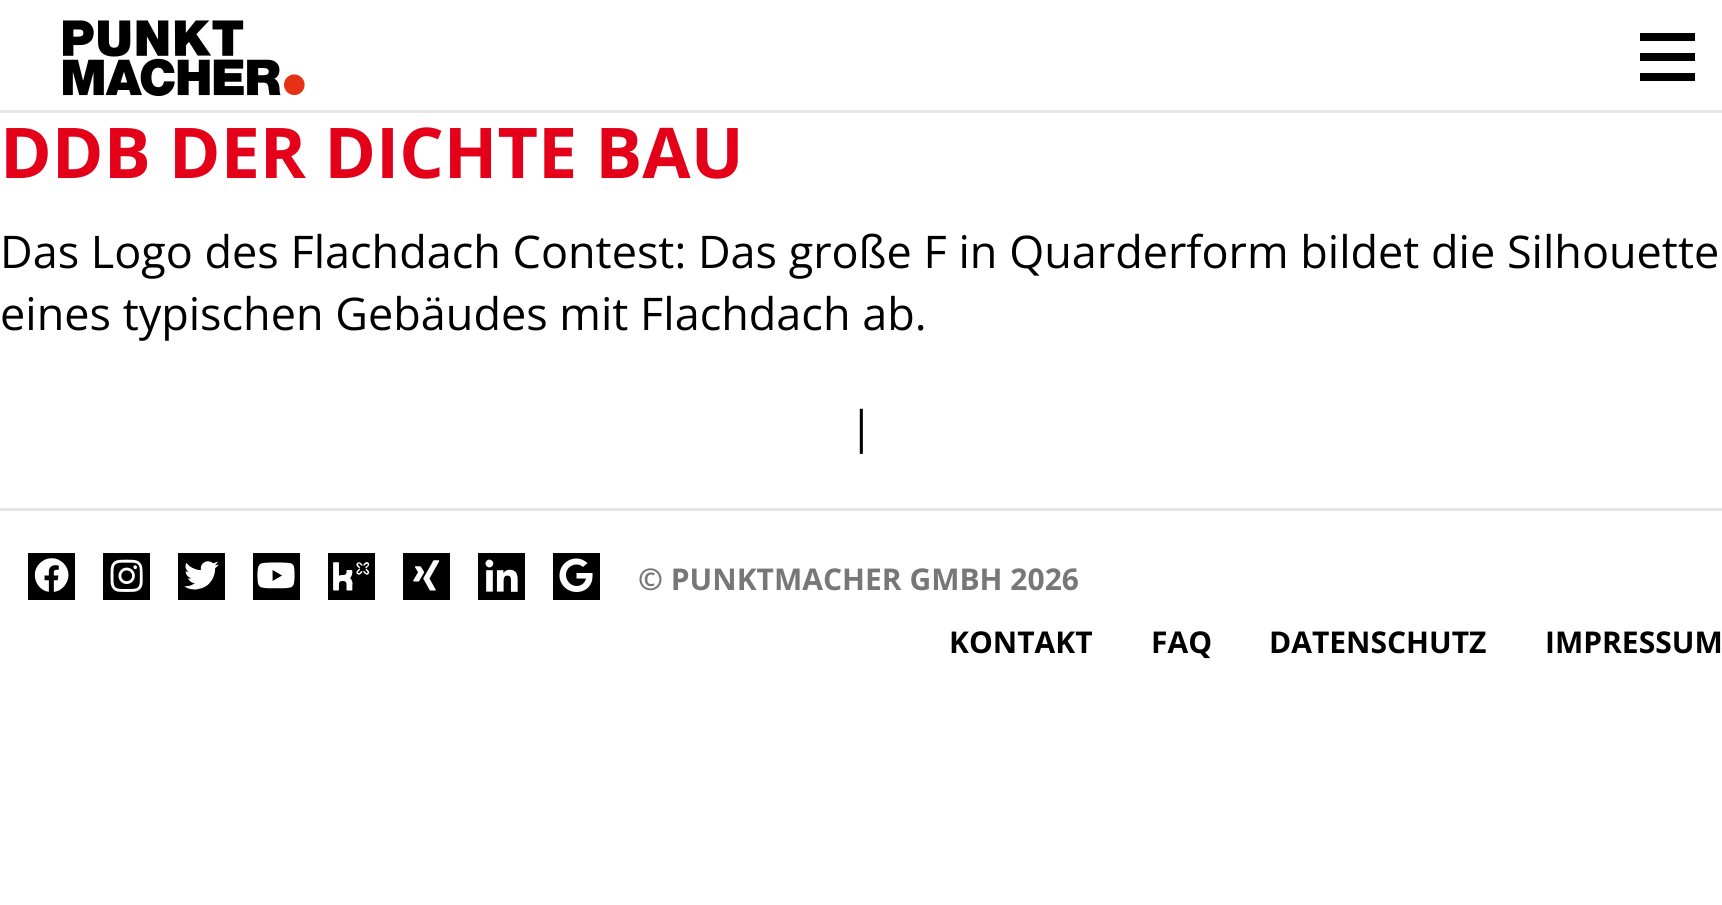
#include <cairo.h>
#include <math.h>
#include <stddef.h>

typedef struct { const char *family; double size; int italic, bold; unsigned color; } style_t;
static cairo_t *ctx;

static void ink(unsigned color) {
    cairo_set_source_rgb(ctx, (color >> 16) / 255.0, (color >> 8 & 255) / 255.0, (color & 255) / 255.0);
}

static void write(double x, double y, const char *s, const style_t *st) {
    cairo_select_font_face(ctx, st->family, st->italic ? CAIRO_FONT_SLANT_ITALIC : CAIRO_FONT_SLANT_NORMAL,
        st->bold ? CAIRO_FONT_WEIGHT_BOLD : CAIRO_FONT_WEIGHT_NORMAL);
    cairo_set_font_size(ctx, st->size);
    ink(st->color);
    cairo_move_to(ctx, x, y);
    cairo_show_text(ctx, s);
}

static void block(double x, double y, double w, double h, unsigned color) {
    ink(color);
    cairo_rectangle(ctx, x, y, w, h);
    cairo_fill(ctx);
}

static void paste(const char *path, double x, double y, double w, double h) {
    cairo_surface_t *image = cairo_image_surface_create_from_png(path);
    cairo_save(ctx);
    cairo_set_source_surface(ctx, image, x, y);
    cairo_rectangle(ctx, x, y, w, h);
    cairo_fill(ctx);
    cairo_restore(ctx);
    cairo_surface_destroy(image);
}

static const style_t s1 = {"Open Sans", 70, 0, 1, 0xe30018};
static const style_t s2 = {"Open Sans", 45, 0, 0, 0x000000};
static const style_t s3 = {"Open Sans", 30, 0, 1, 0x777777};
static const style_t s4 = {"Open Sans", 30, 0, 1, 0x000000};

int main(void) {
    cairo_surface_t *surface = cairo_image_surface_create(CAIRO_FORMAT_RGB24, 1722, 905);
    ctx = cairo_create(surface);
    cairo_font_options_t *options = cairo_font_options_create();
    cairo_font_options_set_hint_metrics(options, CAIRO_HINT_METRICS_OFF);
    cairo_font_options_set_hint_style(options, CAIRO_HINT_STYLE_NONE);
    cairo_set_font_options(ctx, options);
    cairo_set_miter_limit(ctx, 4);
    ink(0xffffff);
    cairo_paint(ctx);
    block(0, 110, 1722, 3, 0xe6e6e6);
    paste("pic1.png", 63, 20, 242, 76);
    block(1640, 33, 55, 8, 0x000000);
    block(1640, 53, 55, 8, 0x000000);
    block(1640, 73, 55, 8, 0x000000);
    write(0, 178, "DDB DER DICHTE BAU", &s1);
    write(0, 268, "Das Logo des Flachdach Contest: Das große F in Quarderform bildet die Silhouette", &s2);
    write(0, 330, "eines typischen Gebäudes mit Flachdach ab.", &s2);
    write(849, 443, "|", &s2);
    block(0, 508, 1722, 3, 0xe6e6e6);
    paste("pic2.png", 28, 553, 47, 47);
    paste("pic3.png", 103, 553, 47, 47);
    paste("pic4.png", 178, 553, 47, 47);
    paste("pic5.png", 253, 553, 47, 47);
    paste("pic6.png", 328, 553, 47, 47);
    paste("pic7.png", 403, 553, 47, 47);
    paste("pic8.png", 478, 553, 47, 47);
    block(553, 553, 47, 47, 0x000000);
    ink(0xffffff);
    cairo_new_path(ctx);
    cairo_move_to(ctx, 576.5, 592);
    cairo_curve_to(ctx, 567, 592, 559.5, 584.5, 559.5, 575.5);
    cairo_curve_to(ctx, 559.5, 566, 567, 558.5, 576.5, 558.5);
    cairo_curve_to(ctx, 581, 558.5, 584.5, 560.5, 587.5, 563);
    cairo_line_to(ctx, 583, 567);
    cairo_curve_to(ctx, 577, 561.5, 566, 565.5, 566, 575);
    cairo_curve_to(ctx, 566, 581, 571, 586, 576.5, 586);
    cairo_curve_to(ctx, 583, 586, 585.5, 581, 586, 578.5);
    cairo_line_to(ctx, 576.5, 578.5);
    cairo_line_to(ctx, 576.5, 573);
    cairo_line_to(ctx, 592.5, 573);
    cairo_line_to(ctx, 592.5, 576);
    cairo_curve_to(ctx, 592.5, 585.5, 586, 592, 576.5, 592);
    cairo_close_path(ctx);
    cairo_fill(ctx);
    write(638, 590, "© PUNKTMACHER GMBH 2026", &s3);
    write(949, 653, "KONTAKT", &s4);
    write(1151, 653, "FAQ", &s4);
    write(1269, 653, "DATENSCHUTZ", &s4);
    write(1545, 653, "IMPRESSUM", &s4);
    cairo_surface_write_to_png(surface, "screenshot.png");
    cairo_font_options_destroy(options);
    cairo_destroy(ctx);
    cairo_surface_destroy(surface);
    return 0;
}
